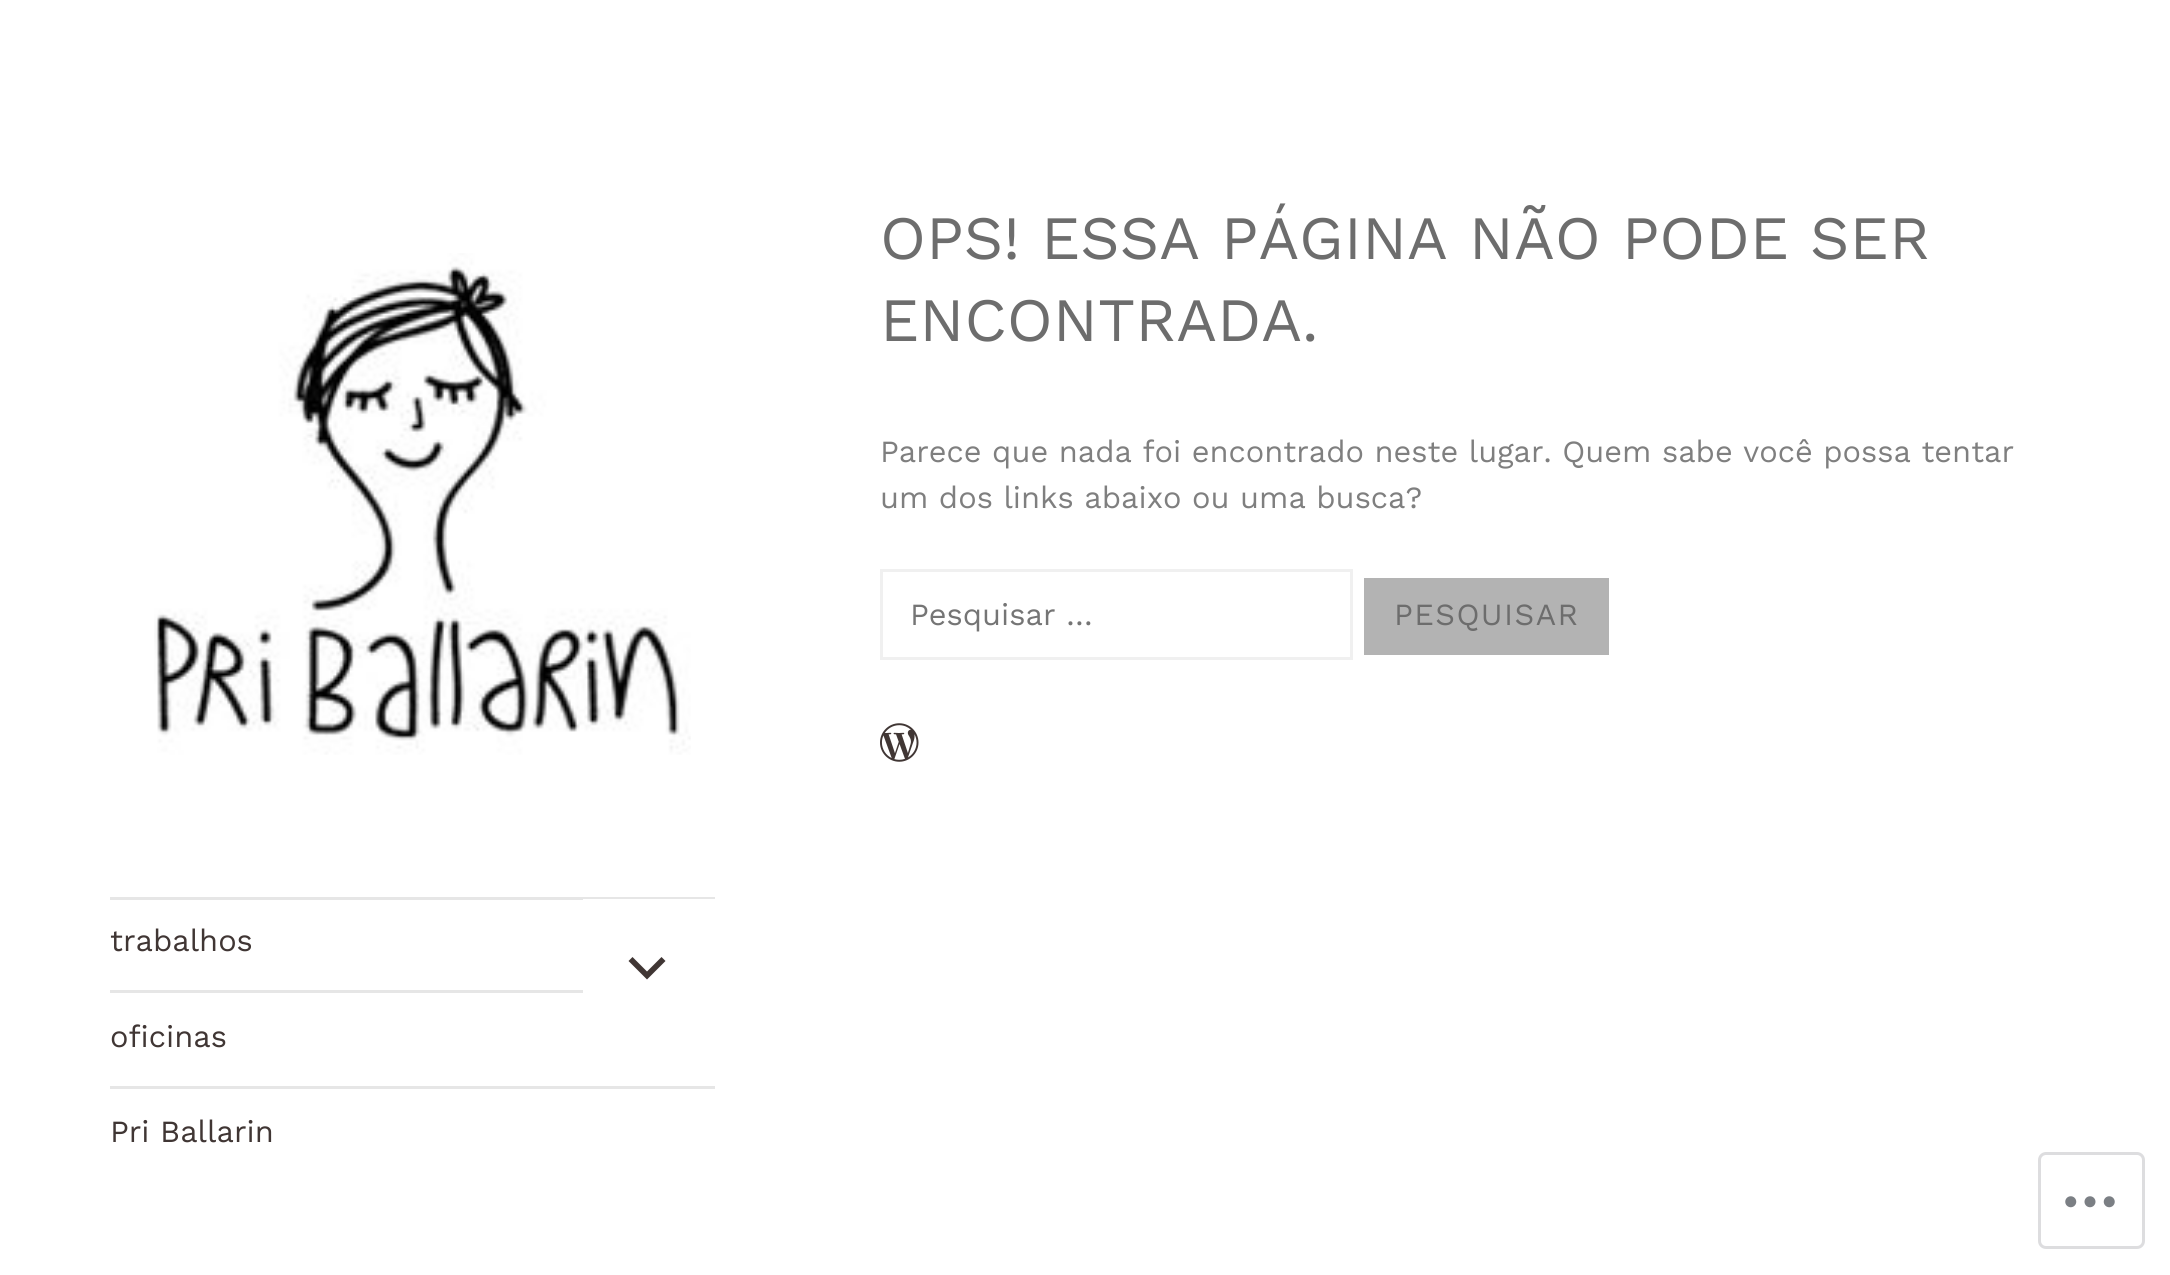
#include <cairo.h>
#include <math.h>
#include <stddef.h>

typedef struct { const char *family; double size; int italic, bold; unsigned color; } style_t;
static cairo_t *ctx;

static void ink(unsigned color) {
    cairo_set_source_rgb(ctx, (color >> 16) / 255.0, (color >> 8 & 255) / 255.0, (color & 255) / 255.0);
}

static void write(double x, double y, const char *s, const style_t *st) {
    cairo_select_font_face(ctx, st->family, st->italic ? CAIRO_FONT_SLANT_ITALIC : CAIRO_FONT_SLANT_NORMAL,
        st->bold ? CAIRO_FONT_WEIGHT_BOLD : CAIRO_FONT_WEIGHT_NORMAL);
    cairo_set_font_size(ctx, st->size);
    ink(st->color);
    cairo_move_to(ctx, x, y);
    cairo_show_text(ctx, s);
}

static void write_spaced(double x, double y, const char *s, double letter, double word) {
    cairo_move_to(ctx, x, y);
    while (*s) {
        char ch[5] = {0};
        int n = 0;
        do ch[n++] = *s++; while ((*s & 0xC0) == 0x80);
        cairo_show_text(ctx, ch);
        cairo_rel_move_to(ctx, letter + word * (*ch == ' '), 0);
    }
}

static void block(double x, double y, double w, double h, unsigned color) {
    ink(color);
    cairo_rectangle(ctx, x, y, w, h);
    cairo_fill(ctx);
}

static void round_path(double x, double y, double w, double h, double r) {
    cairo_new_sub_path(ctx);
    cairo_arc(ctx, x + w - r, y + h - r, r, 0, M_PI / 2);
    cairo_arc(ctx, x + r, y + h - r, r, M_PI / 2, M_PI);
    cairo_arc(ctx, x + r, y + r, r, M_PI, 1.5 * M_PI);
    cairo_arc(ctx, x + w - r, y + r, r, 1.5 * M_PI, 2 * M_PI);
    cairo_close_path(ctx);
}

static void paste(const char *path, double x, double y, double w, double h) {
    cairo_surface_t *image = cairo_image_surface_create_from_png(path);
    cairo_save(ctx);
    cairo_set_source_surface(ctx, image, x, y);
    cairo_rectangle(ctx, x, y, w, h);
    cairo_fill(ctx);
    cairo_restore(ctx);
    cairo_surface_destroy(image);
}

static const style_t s1 = {"Work Sans", 61.6, 0, 0, 0x6d6d6d};
static const style_t s2 = {"Work Sans", 30.8, 0, 0, 0x7f7f7f};
static const style_t s3 = {"Work Sans", 30.8, 0, 0, 0x757575};
static const style_t s4 = {"Work Sans", 30.8, 0, 0, 0x403634};

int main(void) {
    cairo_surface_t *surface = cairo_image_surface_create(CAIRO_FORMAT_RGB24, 2170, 1275);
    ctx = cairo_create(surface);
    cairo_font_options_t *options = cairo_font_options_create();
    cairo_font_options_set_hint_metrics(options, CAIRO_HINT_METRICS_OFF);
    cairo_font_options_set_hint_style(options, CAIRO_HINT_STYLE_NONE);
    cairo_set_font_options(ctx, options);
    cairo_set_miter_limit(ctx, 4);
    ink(0xffffff);
    cairo_paint(ctx);
    write(880, 259, "OPS! ESSA PÁGINA NÃO PODE SER", &s1);
    write(880, 341, "ENCONTRADA.", &s1);
    write(880, 462, "Parece que nada foi encontrado neste lugar. Quem sabe você possa tentar", &s2);
    write(880, 508, "um dos links abaixo ou uma busca?", &s2);
    cairo_rectangle(ctx, 881.5, 570.5, 470, 88);
    ink(0xf0f0f0);
    cairo_set_line_width(ctx, 3);
    cairo_stroke(ctx);
    write(910, 625, "Pesquisar …", &s3);
    block(1364, 578, 245, 77, 0xb3b3b3);
    ink(0x6d6d6d);
    write_spaced(1394, 625, "PESQUISAR", 1.4, 0);
    paste("pic1.png", 880, 723, 39, 39);
    paste("pic2.png", 154, 253, 537, 502);
    block(110, 897, 605, 3, 0xe6e6e6);
    write(110, 951, "trabalhos", &s4);
    block(583, 899, 132, 1, 0xffffff);
    ink(0x403634);
    cairo_new_path(ctx);
    cairo_move_to(ctx, 661.5, 957);
    cairo_line_to(ctx, 665.5, 961);
    cairo_line_to(ctx, 647, 979.5);
    cairo_line_to(ctx, 628.5, 961);
    cairo_line_to(ctx, 632.5, 957);
    cairo_line_to(ctx, 647, 971.5);
    cairo_close_path(ctx);
    cairo_fill(ctx);
    block(110, 990, 473, 3, 0xe6e6e6);
    write(110, 1047, "oficinas", &s4);
    block(110, 1086, 605, 3, 0xe6e6e6);
    write(110, 1142, "Pri Ballarin", &s4);
    round_path(2039.5, 1153.5, 104, 94, 6.5);
    ink(0xdddddf);
    cairo_stroke(ctx);
    paste("pic3.png", 2065, 1196, 50, 12);
    cairo_surface_write_to_png(surface, "screenshot.png");
    cairo_font_options_destroy(options);
    cairo_destroy(ctx);
    cairo_surface_destroy(surface);
    return 0;
}
